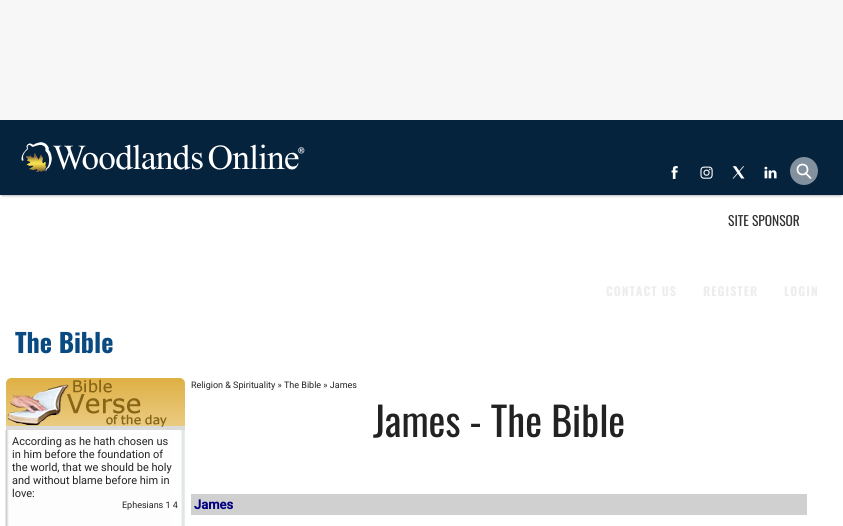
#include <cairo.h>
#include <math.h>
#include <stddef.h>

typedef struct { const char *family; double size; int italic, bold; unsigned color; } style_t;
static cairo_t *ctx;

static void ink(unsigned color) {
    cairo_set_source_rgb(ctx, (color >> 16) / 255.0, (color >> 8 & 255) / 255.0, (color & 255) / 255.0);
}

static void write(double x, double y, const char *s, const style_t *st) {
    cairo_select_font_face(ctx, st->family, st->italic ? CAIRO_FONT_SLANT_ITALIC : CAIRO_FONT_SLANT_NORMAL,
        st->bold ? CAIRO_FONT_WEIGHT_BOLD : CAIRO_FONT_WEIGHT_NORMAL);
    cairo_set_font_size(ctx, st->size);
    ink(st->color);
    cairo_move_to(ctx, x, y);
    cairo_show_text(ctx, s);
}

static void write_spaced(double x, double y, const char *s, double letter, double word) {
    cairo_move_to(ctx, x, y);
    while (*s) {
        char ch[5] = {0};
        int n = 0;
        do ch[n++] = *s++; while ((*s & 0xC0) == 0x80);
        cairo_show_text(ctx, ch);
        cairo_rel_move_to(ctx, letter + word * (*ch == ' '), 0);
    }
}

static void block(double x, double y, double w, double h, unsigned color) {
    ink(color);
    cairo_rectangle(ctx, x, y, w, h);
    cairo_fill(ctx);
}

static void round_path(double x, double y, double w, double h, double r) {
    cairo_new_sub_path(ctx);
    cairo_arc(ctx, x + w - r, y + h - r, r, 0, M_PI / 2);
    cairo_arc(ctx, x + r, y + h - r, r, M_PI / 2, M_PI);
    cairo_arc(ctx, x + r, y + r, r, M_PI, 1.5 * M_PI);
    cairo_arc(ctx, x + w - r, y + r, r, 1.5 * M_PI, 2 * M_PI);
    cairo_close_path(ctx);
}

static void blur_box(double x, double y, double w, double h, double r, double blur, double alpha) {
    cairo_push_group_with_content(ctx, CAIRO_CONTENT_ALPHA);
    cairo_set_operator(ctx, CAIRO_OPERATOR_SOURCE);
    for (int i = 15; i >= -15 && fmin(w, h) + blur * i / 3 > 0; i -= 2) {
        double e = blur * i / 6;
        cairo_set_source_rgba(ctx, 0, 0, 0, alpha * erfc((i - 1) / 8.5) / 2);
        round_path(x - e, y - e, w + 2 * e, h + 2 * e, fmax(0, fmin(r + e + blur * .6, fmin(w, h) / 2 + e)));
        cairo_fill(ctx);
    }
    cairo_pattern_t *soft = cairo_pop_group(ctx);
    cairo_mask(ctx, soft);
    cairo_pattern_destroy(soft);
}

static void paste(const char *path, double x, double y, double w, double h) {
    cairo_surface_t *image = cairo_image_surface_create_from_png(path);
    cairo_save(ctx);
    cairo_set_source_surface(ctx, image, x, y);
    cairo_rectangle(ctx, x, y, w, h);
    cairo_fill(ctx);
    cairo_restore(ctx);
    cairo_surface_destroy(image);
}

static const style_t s1 = {"Oswald", 13.5, 0, 0, 0x333333};
static const style_t s2 = {"Oswald", 26, 0, 1, 0x094a82};
static const style_t s3 = {"Roboto", 11, 0, 0, 0x222222};
static const style_t s4 = {"Roboto", 9, 0, 0, 0x222222};
static const style_t s5 = {"Oswald", 40, 0, 0, 0x222222};
static const style_t s6 = {"Roboto", 13, 0, 1, 0x000080};

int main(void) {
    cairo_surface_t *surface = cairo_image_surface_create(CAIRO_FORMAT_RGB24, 843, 526);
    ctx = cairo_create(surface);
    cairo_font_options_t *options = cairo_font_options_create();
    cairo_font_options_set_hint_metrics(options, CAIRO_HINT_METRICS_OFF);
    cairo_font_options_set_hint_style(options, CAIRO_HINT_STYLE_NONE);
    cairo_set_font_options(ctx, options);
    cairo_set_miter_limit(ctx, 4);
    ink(0xffffff);
    cairo_paint(ctx);
    block(0, 0, 843, 120, 0xf7f7f7);
    ink(0x000000);
    blur_box(2, 124, 839, 71, 0, 1.5, 0.5);
    block(0, 120, 843, 75, 0x06233e);
    paste("pic1.png", 21, 142, 284, 30);
    paste("pic2.png", 671, 166, 7, 13);
    paste("pic3.png", 700, 166, 13, 13);
    paste("pic4.png", 732, 166, 13, 13);
    paste("pic5.png", 764, 166, 13, 13);
    ink(0x83919f);
    cairo_arc(ctx, 804, 171, 14, 0, 2 * M_PI);
    cairo_fill(ctx);
    cairo_new_path(ctx);
    cairo_move_to(ctx, 810.5, 178);
    cairo_line_to(ctx, 805.5, 173);
    ink(0xffffff);
    cairo_set_line_width(ctx, 1.7);
    cairo_set_line_cap(ctx, CAIRO_LINE_CAP_ROUND);
    cairo_stroke(ctx);
    cairo_arc(ctx, 802.5, 169.5, 5, 0, 2 * M_PI);
    cairo_set_line_cap(ctx, CAIRO_LINE_CAP_BUTT);
    cairo_stroke(ctx);
    write(728, 226, "SITE SPONSOR", &s1);
    cairo_select_font_face(ctx, "Oswald", CAIRO_FONT_SLANT_NORMAL, CAIRO_FONT_WEIGHT_BOLD);
    cairo_set_font_size(ctx, 12);
    ink(0xededed);
    write_spaced(606, 296, "CONTACT US", 1, 0);
    write_spaced(703, 296, "REGISTER", 1, 0);
    write_spaced(784, 296, "LOGIN", 1, 0);
    write(15, 353, "The Bible", &s2);
    paste("pic6.png", 6, 378, 180, 52);
    paste("pic7.png", 5, 430, 181, 96);
    write(12, 445, "According as he hath chosen us", &s3);
    write(12, 458, "in him before the foundation of", &s3);
    write(12, 471, "the world, that we should be holy", &s3);
    write(12, 484, "and without blame before him in", &s3);
    write(12, 497, "love:", &s3);
    write(122, 508, "Ephesians 1 4", &s4);
    write(191, 388, "Religion & Spirituality » The Bible » James", &s4);
    write(373, 437, "James - The Bible", &s5);
    block(191, 494, 616, 21, 0xd0d0d0);
    write(194, 509, "James", &s6);
    cairo_surface_write_to_png(surface, "screenshot.png");
    cairo_font_options_destroy(options);
    cairo_destroy(ctx);
    cairo_surface_destroy(surface);
    return 0;
}
